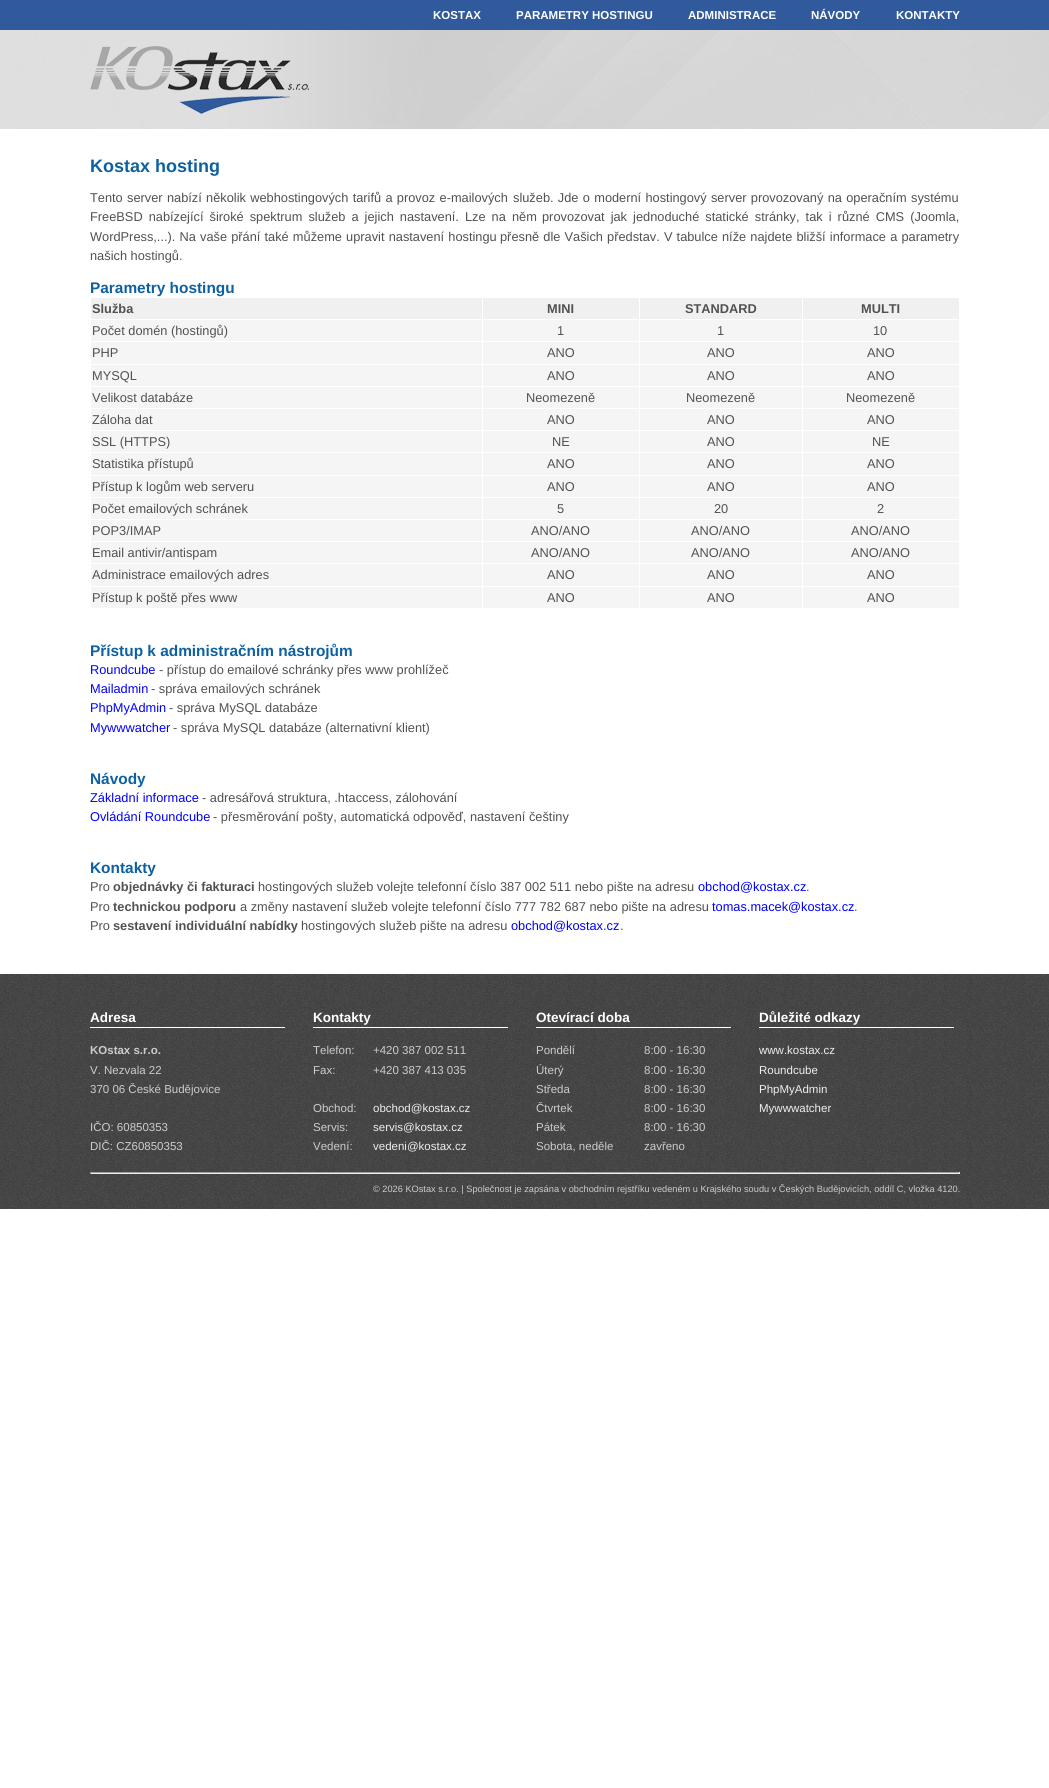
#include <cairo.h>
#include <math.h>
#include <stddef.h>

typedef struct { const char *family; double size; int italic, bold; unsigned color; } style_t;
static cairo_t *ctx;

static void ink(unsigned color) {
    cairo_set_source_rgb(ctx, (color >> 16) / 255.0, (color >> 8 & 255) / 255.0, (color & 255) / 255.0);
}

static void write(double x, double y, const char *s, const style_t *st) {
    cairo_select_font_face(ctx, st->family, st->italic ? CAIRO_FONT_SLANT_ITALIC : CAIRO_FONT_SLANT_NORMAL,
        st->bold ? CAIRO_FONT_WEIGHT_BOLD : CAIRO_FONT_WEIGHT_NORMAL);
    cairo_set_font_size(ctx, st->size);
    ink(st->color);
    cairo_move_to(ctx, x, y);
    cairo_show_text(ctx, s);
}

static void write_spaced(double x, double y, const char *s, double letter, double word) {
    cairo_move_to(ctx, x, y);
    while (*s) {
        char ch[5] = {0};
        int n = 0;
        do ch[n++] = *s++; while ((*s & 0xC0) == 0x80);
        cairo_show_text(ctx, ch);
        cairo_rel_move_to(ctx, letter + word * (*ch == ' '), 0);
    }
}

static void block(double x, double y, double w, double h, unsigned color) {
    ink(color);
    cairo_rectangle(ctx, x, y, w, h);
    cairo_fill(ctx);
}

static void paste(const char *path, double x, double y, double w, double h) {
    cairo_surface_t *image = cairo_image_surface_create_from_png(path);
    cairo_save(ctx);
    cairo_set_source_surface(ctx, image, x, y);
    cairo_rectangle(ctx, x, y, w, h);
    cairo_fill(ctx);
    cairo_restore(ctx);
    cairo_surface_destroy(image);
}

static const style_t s1 = {"Liberation Sans", 11.5, 0, 1, 0xffffff};
static const style_t s2 = {"Liberation Sans", 18, 0, 1, 0x0d61a1};
static const style_t s3 = {"Liberation Sans", 12.8, 0, 0, 0x525151};
static const style_t s4 = {"Liberation Sans", 15.4, 0, 1, 0x0d61a1};
static const style_t s5 = {"Liberation Sans", 12.8, 0, 1, 0x525151};
static const style_t s6 = {"Liberation Sans", 12.8, 0, 0, 0x0000ff};
static const style_t s7 = {"Liberation Sans", 13.5, 0, 1, 0xffffff};
static const style_t s8 = {"Liberation Sans", 11.5, 0, 1, 0xcccccc};
static const style_t s9 = {"Liberation Sans", 11.5, 0, 0, 0xcccccc};
static const style_t s10 = {"Liberation Sans", 11.5, 0, 0, 0xeeeeee};
static const style_t s11 = {"Liberation Sans", 9.22, 0, 0, 0xcccccc};

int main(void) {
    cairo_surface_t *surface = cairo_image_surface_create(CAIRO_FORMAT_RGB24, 1049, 1788);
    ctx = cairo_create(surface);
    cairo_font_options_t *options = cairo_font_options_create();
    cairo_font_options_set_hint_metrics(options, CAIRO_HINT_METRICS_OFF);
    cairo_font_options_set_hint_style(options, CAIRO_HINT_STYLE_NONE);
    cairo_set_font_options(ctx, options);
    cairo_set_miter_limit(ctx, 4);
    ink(0xffffff);
    cairo_paint(ctx);
    paste("pic1.png", 0, 30, 1049, 99);
    block(0, 0, 1049, 30, 0x315a9c);
    write(433, 19, "KOSTAX", &s1);
    write(516, 19, "PARAMETRY HOSTINGU", &s1);
    write(688, 19, "ADMINISTRACE", &s1);
    write(811, 19, "NÁVODY", &s1);
    write(896, 19, "KONTAKTY", &s1);
    paste("pic2.png", 90, 46, 219, 68);
    write(90, 172, "Kostax hosting", &s2);
    cairo_select_font_face(ctx, "Liberation Sans", CAIRO_FONT_SLANT_NORMAL, CAIRO_FONT_WEIGHT_NORMAL);
    cairo_set_font_size(ctx, 12.8);
    ink(0x525151);
    write_spaced(90, 202, "Tento server nabízí několik webhostingových tarifů a provoz e-mailových", 0, 0.75);
    write_spaced(513, 202, "služeb. Jde o moderní hostingový server provozovaný na operačním systému", 0, 0.75);
    write_spaced(90, 221, "FreeBSD nabízející široké spektrum služeb a jejich nastavení. Lze na něm", 0, 2.5);
    write_spaced(542, 221, "provozovat jak jednoduché statické stránky, tak i různé CMS (Joomla,", 0, 2.5);
    write_spaced(90, 241, "WordPress,...). Na vaše přání také můžeme upravit nastavení hostingu", 0, 0.6);
    write_spaced(500, 241, "přesně dle Vašich představ. V tabulce níže najdete bližší informace a parametry", 0, 0.6);
    write(90, 260, "našich hostingů.", &s3);
    write(90, 293, "Parametry hostingu", &s4);
    block(91, 298, 391, 21, 0xf0f0f0);
    write(92, 313, "Služba", &s5);
    block(483, 298, 156, 21, 0xf0f0f0);
    write(547, 313, "MINI", &s5);
    block(640, 298, 162, 21, 0xf0f0f0);
    write(685, 313, "STANDARD", &s5);
    block(803, 298, 156, 21, 0xf0f0f0);
    write(861, 313, "MULTI", &s5);
    block(91, 320, 391, 21, 0xf5f5f5);
    write(92, 335, "Počet domén (hostingů)", &s3);
    block(483, 320, 156, 21, 0xf5f5f5);
    write(557, 335, "1", &s3);
    block(640, 320, 162, 21, 0xf5f5f5);
    write(717, 335, "1", &s3);
    block(803, 320, 156, 21, 0xf5f5f5);
    write(873, 335, "10", &s3);
    block(91, 342, 391, 22, 0xf5f5f5);
    write(92, 357, "PHP", &s3);
    block(483, 342, 156, 22, 0xf5f5f5);
    write(547, 357, "ANO", &s3);
    block(640, 342, 162, 22, 0xf5f5f5);
    write(707, 357, "ANO", &s3);
    block(803, 342, 156, 22, 0xf5f5f5);
    write(867, 357, "ANO", &s3);
    block(91, 365, 391, 21, 0xf5f5f5);
    write(92, 380, "MYSQL", &s3);
    block(483, 365, 156, 21, 0xf5f5f5);
    write(547, 380, "ANO", &s3);
    block(640, 365, 162, 21, 0xf5f5f5);
    write(707, 380, "ANO", &s3);
    block(803, 365, 156, 21, 0xf5f5f5);
    write(867, 380, "ANO", &s3);
    block(91, 387, 391, 21, 0xf5f5f5);
    write(92, 402, "Velikost databáze", &s3);
    block(483, 387, 156, 21, 0xf5f5f5);
    write(526, 402, "Neomezeně", &s3);
    block(640, 387, 162, 21, 0xf5f5f5);
    write(686, 402, "Neomezeně", &s3);
    block(803, 387, 156, 21, 0xf5f5f5);
    write(846, 402, "Neomezeně", &s3);
    block(91, 409, 391, 21, 0xf5f5f5);
    write(92, 424, "Záloha dat", &s3);
    block(483, 409, 156, 21, 0xf5f5f5);
    write(547, 424, "ANO", &s3);
    block(640, 409, 162, 21, 0xf5f5f5);
    write(707, 424, "ANO", &s3);
    block(803, 409, 156, 21, 0xf5f5f5);
    write(867, 424, "ANO", &s3);
    block(91, 431, 391, 21, 0xf5f5f5);
    write(92, 446, "SSL (HTTPS)", &s3);
    block(483, 431, 156, 21, 0xf5f5f5);
    write(552, 446, "NE", &s3);
    block(640, 431, 162, 21, 0xf5f5f5);
    write(707, 446, "ANO", &s3);
    block(803, 431, 156, 21, 0xf5f5f5);
    write(872, 446, "NE", &s3);
    block(91, 453, 391, 22, 0xf5f5f5);
    write(92, 468, "Statistika přístupů", &s3);
    block(483, 453, 156, 22, 0xf5f5f5);
    write(547, 468, "ANO", &s3);
    block(640, 453, 162, 22, 0xf5f5f5);
    write(707, 468, "ANO", &s3);
    block(803, 453, 156, 22, 0xf5f5f5);
    write(867, 468, "ANO", &s3);
    block(91, 476, 391, 21, 0xf5f5f5);
    write(92, 491, "Přístup k logům web serveru", &s3);
    block(483, 476, 156, 21, 0xf5f5f5);
    write(547, 491, "ANO", &s3);
    block(640, 476, 162, 21, 0xf5f5f5);
    write(707, 491, "ANO", &s3);
    block(803, 476, 156, 21, 0xf5f5f5);
    write(867, 491, "ANO", &s3);
    block(91, 498, 391, 21, 0xf5f5f5);
    write(92, 513, "Počet emailových schránek", &s3);
    block(483, 498, 156, 21, 0xf5f5f5);
    write(557, 513, "5", &s3);
    block(640, 498, 162, 21, 0xf5f5f5);
    write(714, 513, "20", &s3);
    block(803, 498, 156, 21, 0xf5f5f5);
    write(877, 513, "2", &s3);
    block(91, 520, 391, 21, 0xf5f5f5);
    write(92, 535, "POP3/IMAP", &s3);
    block(483, 520, 156, 21, 0xf5f5f5);
    write(531, 535, "ANO/ANO", &s3);
    block(640, 520, 162, 21, 0xf5f5f5);
    write(691, 535, "ANO/ANO", &s3);
    block(803, 520, 156, 21, 0xf5f5f5);
    write(851, 535, "ANO/ANO", &s3);
    block(91, 542, 391, 21, 0xf5f5f5);
    write(92, 557, "Email antivir/antispam", &s3);
    block(483, 542, 156, 21, 0xf5f5f5);
    write(531, 557, "ANO/ANO", &s3);
    block(640, 542, 162, 21, 0xf5f5f5);
    write(691, 557, "ANO/ANO", &s3);
    block(803, 542, 156, 21, 0xf5f5f5);
    write(851, 557, "ANO/ANO", &s3);
    block(91, 564, 391, 22, 0xf5f5f5);
    write(92, 579, "Administrace emailových adres", &s3);
    block(483, 564, 156, 22, 0xf5f5f5);
    write(547, 579, "ANO", &s3);
    block(640, 564, 162, 22, 0xf5f5f5);
    write(707, 579, "ANO", &s3);
    block(803, 564, 156, 22, 0xf5f5f5);
    write(867, 579, "ANO", &s3);
    block(91, 587, 391, 21, 0xf5f5f5);
    write(92, 602, "Přístup k poště přes www", &s3);
    block(483, 587, 156, 21, 0xf5f5f5);
    write(547, 602, "ANO", &s3);
    block(640, 587, 162, 21, 0xf5f5f5);
    write(707, 602, "ANO", &s3);
    block(803, 587, 156, 21, 0xf5f5f5);
    write(867, 602, "ANO", &s3);
    write(90, 656, "Přístup k administračním nástrojům", &s4);
    write(90, 674, "Roundcube", &s6);
    write(159, 674, "- přístup do emailové schránky přes www prohlížeč", &s3);
    write(90, 693, "Mailadmin", &s6);
    write(151, 693, "- správa emailových schránek", &s3);
    write(90, 712, "PhpMyAdmin", &s6);
    write(169, 712, "- správa MySQL databáze", &s3);
    write(90, 732, "Mywwwatcher", &s6);
    write(173, 732, "- správa MySQL databáze (alternativní klient)", &s3);
    write(90, 784, "Návody", &s4);
    write(90, 802, "Základní informace", &s6);
    write(202, 802, "- adresářová struktura, .htaccess, zálohování", &s3);
    write(90, 821, "Ovládání Roundcube", &s6);
    write(213, 821, "- přesměrování pošty, automatická odpověď, nastavení češtiny", &s3);
    write(90, 873, "Kontakty", &s4);
    write(90, 891, "Pro", &s3);
    write(113, 891, "objednávky či fakturaci", &s5);
    write(258, 891, "hostingových služeb volejte telefonní číslo 387 002 511 nebo pište na adresu", &s3);
    write(698, 891, "obchod@kostax.cz", &s6);
    write(806, 891, ".", &s3);
    write(90, 911, "Pro", &s3);
    write(113, 911, "technickou podporu", &s5);
    write(240, 911, "a změny nastavení služeb volejte telefonní číslo 777 782 687 nebo pište na adresu", &s3);
    write(712, 911, "tomas.macek@kostax.cz", &s6);
    write(854, 911, ".", &s3);
    write(90, 930, "Pro", &s3);
    write(113, 930, "sestavení individuální nabídky", &s5);
    write(301, 930, "hostingových služeb pište na adresu", &s3);
    write(511, 930, "obchod@kostax.cz", &s6);
    write(620, 930, ".", &s3);
    paste("pic3.png", 0, 974, 1049, 235);
    block(90, 1027, 195, 1, 0xffffff);
    write(90, 1022, "Adresa", &s7);
    write(90, 1054, "KOstax s.r.o.", &s8);
    write(90, 1074, "V. Nezvala 22", &s9);
    write(90, 1093, "370 06 České Budějovice", &s9);
    write(90, 1131, "IČO: 60850353", &s9);
    write(90, 1150, "DIČ: CZ60850353", &s9);
    block(313, 1027, 195, 1, 0xffffff);
    write(313, 1022, "Kontakty", &s7);
    write(313, 1054, "Telefon:", &s9);
    write(373, 1054, "+420 387 002 511", &s9);
    write(313, 1074, "Fax:", &s9);
    write(373, 1074, "+420 387 413 035", &s9);
    write(313, 1112, "Obchod:", &s9);
    write(373, 1112, "obchod@kostax.cz", &s10);
    write(313, 1131, "Servis:", &s9);
    write(373, 1131, "servis@kostax.cz", &s10);
    write(313, 1150, "Vedení:", &s9);
    write(373, 1150, "vedeni@kostax.cz", &s10);
    block(536, 1027, 195, 1, 0xffffff);
    write(536, 1022, "Otevírací doba", &s7);
    write(536, 1054, "Pondělí", &s9);
    write(644, 1054, "8:00 - 16:30", &s9);
    write(536, 1074, "Úterý", &s9);
    write(644, 1074, "8:00 - 16:30", &s9);
    write(536, 1093, "Středa", &s9);
    write(644, 1093, "8:00 - 16:30", &s9);
    write(536, 1112, "Čtvrtek", &s9);
    write(644, 1112, "8:00 - 16:30", &s9);
    write(536, 1131, "Pátek", &s9);
    write(644, 1131, "8:00 - 16:30", &s9);
    write(536, 1150, "Sobota, neděle", &s9);
    write(644, 1150, "zavřeno", &s9);
    block(759, 1027, 195, 1, 0xffffff);
    write(759, 1022, "Důležité odkazy", &s7);
    write(759, 1054, "www.kostax.cz", &s10);
    write(759, 1074, "Roundcube", &s10);
    write(759, 1093, "PhpMyAdmin", &s10);
    write(759, 1112, "Mywwwatcher", &s10);
    block(90, 1172, 870, 1, 0x9f9f9f);
    block(959, 1172, 1, 2, 0xeeeeee);
    block(90, 1173, 870, 1, 0xeeeeee);
    block(90, 1172, 1, 2, 0x9f9f9f);
    write(373, 1192, "© 2026 KOstax s.r.o. | Společnost je zapsána v obchodním rejstříku vedeném u Krajského soudu v Českých Budějovicích, oddíl C, vložka 4120.", &s11);
    cairo_surface_write_to_png(surface, "screenshot.png");
    cairo_font_options_destroy(options);
    cairo_destroy(ctx);
    cairo_surface_destroy(surface);
    return 0;
}
